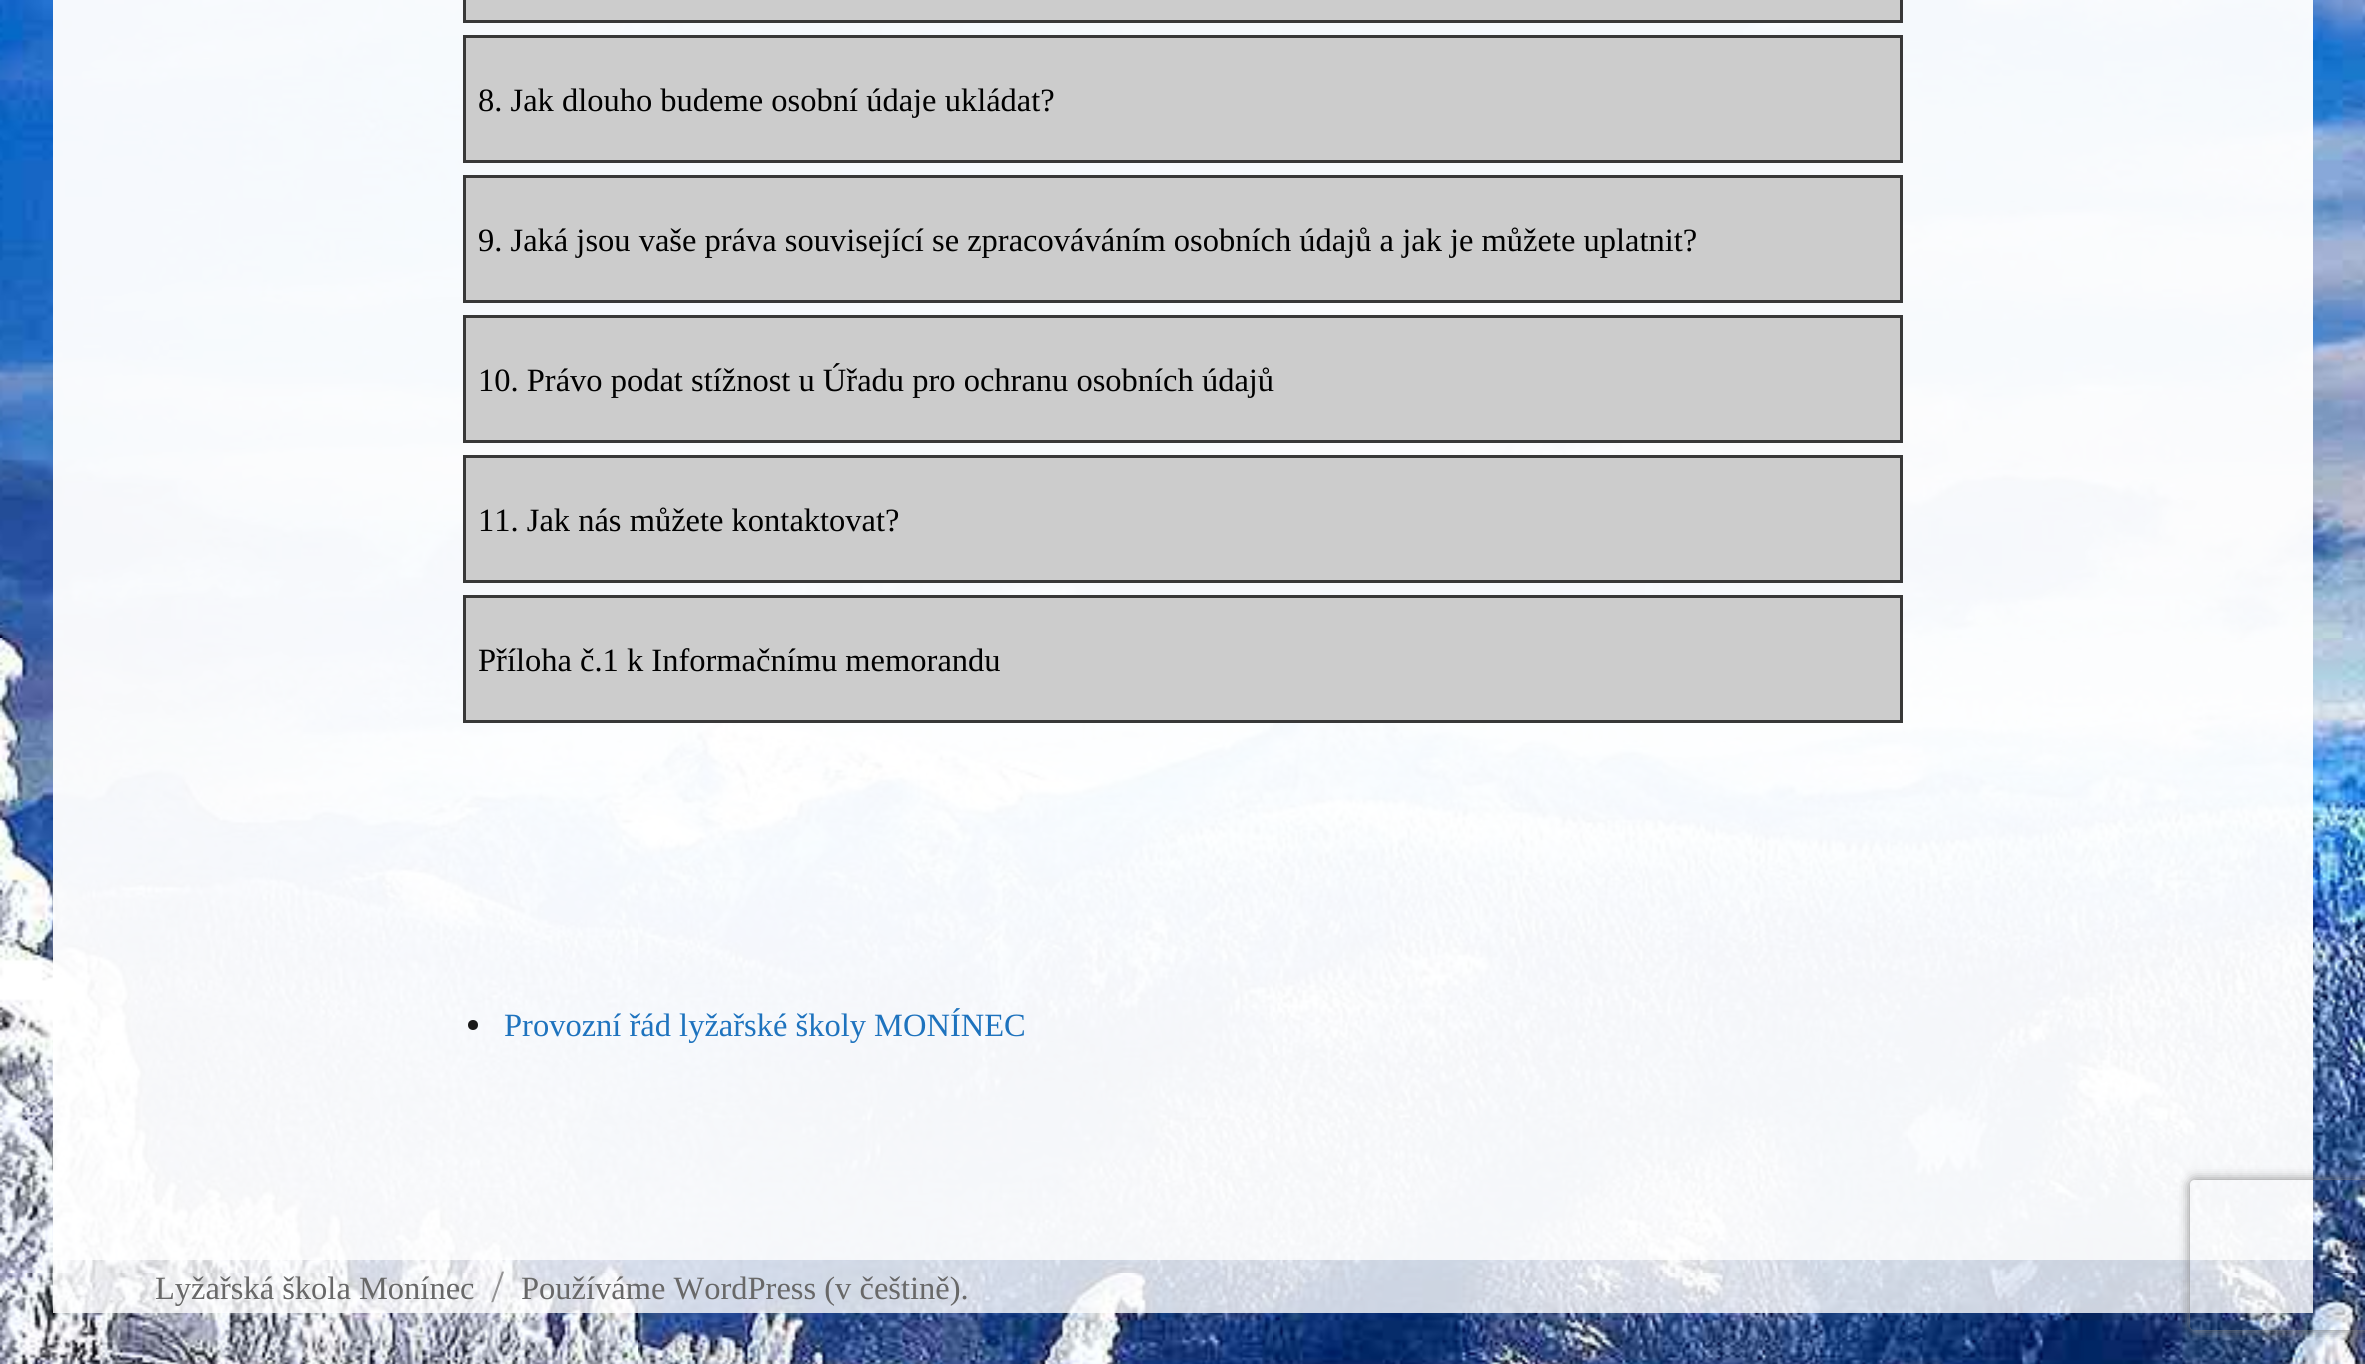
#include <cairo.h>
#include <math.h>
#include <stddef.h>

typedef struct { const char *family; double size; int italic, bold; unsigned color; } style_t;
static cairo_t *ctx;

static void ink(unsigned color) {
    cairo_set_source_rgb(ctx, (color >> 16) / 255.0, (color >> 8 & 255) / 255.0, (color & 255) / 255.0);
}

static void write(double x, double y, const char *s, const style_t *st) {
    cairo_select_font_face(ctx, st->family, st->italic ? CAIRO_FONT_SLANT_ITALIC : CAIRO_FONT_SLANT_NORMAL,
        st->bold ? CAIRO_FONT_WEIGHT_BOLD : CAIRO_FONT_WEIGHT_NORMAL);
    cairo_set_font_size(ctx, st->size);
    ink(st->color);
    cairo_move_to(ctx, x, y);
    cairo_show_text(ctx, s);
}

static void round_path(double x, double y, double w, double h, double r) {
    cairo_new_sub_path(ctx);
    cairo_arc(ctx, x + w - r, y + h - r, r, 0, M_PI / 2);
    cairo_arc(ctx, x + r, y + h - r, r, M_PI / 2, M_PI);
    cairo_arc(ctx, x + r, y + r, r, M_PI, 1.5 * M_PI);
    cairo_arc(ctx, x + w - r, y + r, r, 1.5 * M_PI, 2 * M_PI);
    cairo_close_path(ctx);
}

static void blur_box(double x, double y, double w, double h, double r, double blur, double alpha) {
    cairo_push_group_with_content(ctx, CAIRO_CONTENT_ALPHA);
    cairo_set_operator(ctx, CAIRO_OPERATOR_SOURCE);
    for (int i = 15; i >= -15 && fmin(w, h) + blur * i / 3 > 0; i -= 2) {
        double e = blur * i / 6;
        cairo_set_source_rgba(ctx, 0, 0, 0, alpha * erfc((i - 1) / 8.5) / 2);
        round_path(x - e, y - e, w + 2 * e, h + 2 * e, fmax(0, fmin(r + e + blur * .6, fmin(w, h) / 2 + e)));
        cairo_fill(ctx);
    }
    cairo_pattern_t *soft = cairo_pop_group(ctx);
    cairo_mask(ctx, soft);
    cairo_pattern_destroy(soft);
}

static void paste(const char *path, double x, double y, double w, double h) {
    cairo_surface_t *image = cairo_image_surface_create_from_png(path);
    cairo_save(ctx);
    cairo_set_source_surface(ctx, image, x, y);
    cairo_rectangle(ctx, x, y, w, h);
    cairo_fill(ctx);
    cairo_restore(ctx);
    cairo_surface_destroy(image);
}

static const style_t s1 = {"Liberation Serif", 32.5, 0, 0, 0x000000};
static const style_t s2 = {"Liberation Serif", 32.5, 0, 0, 0x1e73be};
static const style_t s3 = {"Liberation Serif", 32.5, 0, 0, 0x686868};
static const style_t s4 = {"Montserrat", 32.5, 0, 0, 0x919192};

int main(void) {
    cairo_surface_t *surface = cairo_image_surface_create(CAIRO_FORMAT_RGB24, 2365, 1364);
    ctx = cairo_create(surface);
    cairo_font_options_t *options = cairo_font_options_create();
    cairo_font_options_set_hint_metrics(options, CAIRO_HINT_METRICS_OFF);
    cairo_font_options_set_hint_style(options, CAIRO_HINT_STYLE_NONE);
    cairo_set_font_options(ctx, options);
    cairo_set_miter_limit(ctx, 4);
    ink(0xffffff);
    cairo_paint(ctx);
    paste("pic1.png", 0, 0, 2365, 1364);
    cairo_set_source_rgba(ctx, 1, 1, 1, 0.8);
    cairo_rectangle(ctx, 53, 0, 2260, 1260);
    cairo_fill(ctx);
    ink(0xcccccc);
    cairo_rectangle(ctx, 464.5, -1.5, 1437, 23);
    cairo_fill_preserve(ctx);
    ink(0x383838);
    cairo_set_line_width(ctx, 3);
    cairo_stroke(ctx);
    ink(0xcccccc);
    cairo_rectangle(ctx, 464.5, 36.5, 1437, 125);
    cairo_fill_preserve(ctx);
    ink(0x383838);
    cairo_stroke(ctx);
    write(478, 111, "8. Jak dlouho budeme osobní údaje ukládat?", &s1);
    ink(0xcccccc);
    cairo_rectangle(ctx, 464.5, 176.5, 1437, 125);
    cairo_fill_preserve(ctx);
    ink(0x383838);
    cairo_stroke(ctx);
    write(478, 251, "9. Jaká jsou vaše práva související se zpracováváním osobních údajů a jak je můžete uplatnit?", &s1);
    ink(0xcccccc);
    cairo_rectangle(ctx, 464.5, 316.5, 1437, 125);
    cairo_fill_preserve(ctx);
    ink(0x383838);
    cairo_stroke(ctx);
    write(478, 391, "10. Právo podat stížnost u Úřadu pro ochranu osobních údajů", &s1);
    ink(0xcccccc);
    cairo_rectangle(ctx, 464.5, 456.5, 1437, 125);
    cairo_fill_preserve(ctx);
    ink(0x383838);
    cairo_stroke(ctx);
    write(478, 531, "11. Jak nás můžete kontaktovat?", &s1);
    ink(0xcccccc);
    cairo_rectangle(ctx, 464.5, 596.5, 1437, 125);
    cairo_fill_preserve(ctx);
    ink(0x383838);
    cairo_stroke(ctx);
    write(478, 671, "Příloha č.1 k Informačnímu memorandu", &s1);
    ink(0x1a1a1a);
    cairo_new_path(ctx);
    cairo_arc(ctx, 473, 1025, 5, 0, 2 * M_PI);
    cairo_fill(ctx);
    write(504, 1036, "Provozní řád lyžařské školy MONÍNEC", &s2);
    write(155, 1299, "Lyžařská škola Monínec", &s3);
    write(492, 1299, "/", &s4);
    write(521, 1299, "Používáme WordPress (v češtině).", &s3);
    cairo_save(ctx);
    cairo_set_fill_rule(ctx, CAIRO_FILL_RULE_EVEN_ODD);
    cairo_new_path(ctx);
    cairo_move_to(ctx, 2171, 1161);
    cairo_line_to(ctx, 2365, 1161);
    cairo_line_to(ctx, 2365, 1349);
    cairo_line_to(ctx, 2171, 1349);
    cairo_close_path(ctx);
    cairo_move_to(ctx, 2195, 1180);
    cairo_line_to(ctx, 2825, 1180);
    cairo_curve_to(ctx, 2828, 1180, 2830, 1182, 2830, 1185);
    cairo_line_to(ctx, 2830, 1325);
    cairo_curve_to(ctx, 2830, 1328, 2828, 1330, 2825, 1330);
    cairo_line_to(ctx, 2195, 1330);
    cairo_curve_to(ctx, 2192, 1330, 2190, 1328, 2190, 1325);
    cairo_line_to(ctx, 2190, 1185);
    cairo_curve_to(ctx, 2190, 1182, 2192, 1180, 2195, 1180);
    cairo_close_path(ctx);
    cairo_clip(ctx);
    ink(0x808080);
    blur_box(2190, 1180, 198, 150, 5, 6, 1);
    cairo_restore(ctx);
    cairo_surface_write_to_png(surface, "screenshot.png");
    cairo_font_options_destroy(options);
    cairo_destroy(ctx);
    cairo_surface_destroy(surface);
    return 0;
}
